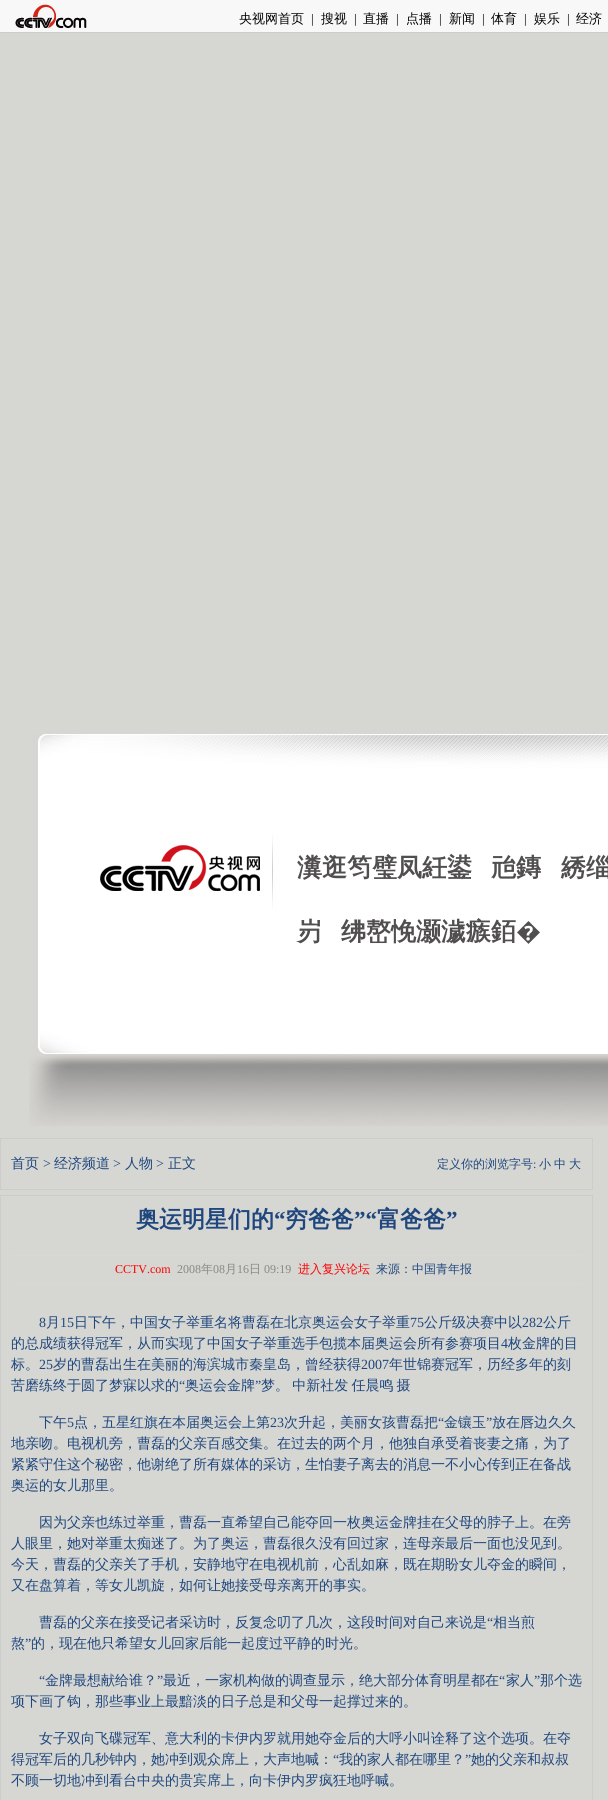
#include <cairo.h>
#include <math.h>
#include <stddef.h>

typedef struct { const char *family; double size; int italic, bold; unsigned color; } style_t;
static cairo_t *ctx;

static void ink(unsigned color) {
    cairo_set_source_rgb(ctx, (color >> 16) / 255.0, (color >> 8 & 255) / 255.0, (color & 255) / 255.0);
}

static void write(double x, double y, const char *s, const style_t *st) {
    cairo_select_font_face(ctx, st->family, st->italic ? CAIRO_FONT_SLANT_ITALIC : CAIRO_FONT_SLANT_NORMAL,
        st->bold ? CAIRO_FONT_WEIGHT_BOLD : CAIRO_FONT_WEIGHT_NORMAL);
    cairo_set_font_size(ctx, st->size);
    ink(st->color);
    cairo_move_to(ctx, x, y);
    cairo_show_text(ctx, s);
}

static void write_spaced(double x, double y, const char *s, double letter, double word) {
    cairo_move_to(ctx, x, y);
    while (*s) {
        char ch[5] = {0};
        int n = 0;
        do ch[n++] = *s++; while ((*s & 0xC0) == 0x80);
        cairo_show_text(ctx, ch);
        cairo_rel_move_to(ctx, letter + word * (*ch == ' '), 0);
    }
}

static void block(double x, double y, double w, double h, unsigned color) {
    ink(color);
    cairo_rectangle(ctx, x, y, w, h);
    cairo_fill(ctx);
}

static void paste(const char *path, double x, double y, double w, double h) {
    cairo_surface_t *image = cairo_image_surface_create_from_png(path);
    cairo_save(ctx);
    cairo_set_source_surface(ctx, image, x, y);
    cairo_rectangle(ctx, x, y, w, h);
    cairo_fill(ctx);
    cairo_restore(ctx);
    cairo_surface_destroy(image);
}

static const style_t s1 = {"WenQuanYi Zen Hei Medium", 13, 0, 0, 0x000000};
static const style_t s2 = {"Liberation Serif", 13, 0, 0, 0x000000};
static const style_t s3 = {"WenQuanYi Zen Hei", 25, 0, 1, 0x504e4e};
static const style_t s4 = {"Noto Sans", 25, 0, 1, 0x504e4e};
static const style_t s5 = {"WenQuanYi Zen Hei Medium", 14, 0, 0, 0x1f477e};
static const style_t s6 = {"Liberation Serif", 14, 0, 0, 0x1f477e};
static const style_t s7 = {"WenQuanYi Zen Hei Medium", 12, 0, 0, 0x1f477e};
static const style_t s8 = {"Liberation Serif", 12, 0, 0, 0x1f477e};
static const style_t s9 = {"WenQuanYi Zen Hei", 23, 0, 1, 0x1f477e};
static const style_t s10 = {"Liberation Serif", 23, 0, 1, 0x1f477e};
static const style_t s11 = {"Liberation Serif", 12, 0, 0, 0xff0000};
static const style_t s12 = {"Liberation Serif", 12, 0, 0, 0x888888};
static const style_t s13 = {"WenQuanYi Zen Hei Medium", 12, 0, 0, 0x888888};
static const style_t s14 = {"WenQuanYi Zen Hei Medium", 12, 0, 0, 0xff0000};

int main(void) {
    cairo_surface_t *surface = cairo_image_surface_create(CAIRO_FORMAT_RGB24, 608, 1800);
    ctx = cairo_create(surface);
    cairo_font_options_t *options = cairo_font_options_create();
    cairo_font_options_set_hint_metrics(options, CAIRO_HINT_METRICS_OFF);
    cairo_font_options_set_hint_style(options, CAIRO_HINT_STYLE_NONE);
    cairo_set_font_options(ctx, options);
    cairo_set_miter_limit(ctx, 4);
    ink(0xd6d6d2);
    cairo_paint(ctx);
    block(0, 0, 608, 32, 0xf8f8f8);
    block(0, 32, 608, 1, 0xcccccc);
    paste("pic1.png", 15, 4, 72, 24);
    write(239, 23, "央视网首页", &s1);
    write(311, 23, "|", &s2);
    write(321, 23, "搜视", &s1);
    write(354, 23, "|", &s2);
    write(363, 23, "直播", &s1);
    write(396, 23, "|", &s2);
    write(406, 23, "点播", &s1);
    write(439, 23, "|", &s2);
    write(449, 23, "新闻", &s1);
    write(482, 23, "|", &s2);
    write(491, 23, "体育", &s1);
    write(524, 23, "|", &s2);
    write(534, 23, "娱乐", &s1);
    write(567, 23, "|", &s2);
    write(576, 23, "经济", &s1);
    paste("pic2.png", 29, 734, 579, 392);
    write(297, 876, "瀵逛笉璧凤紝鍙", &s3);
    write(491, 876, "兘鏄", &s3);
    write(561, 876, "綉缁", &s3);
    write(297, 940, "岃", &s3);
    write(341, 940, "绋嶅悗灏濊瘯銆", &s3);
    write(516, 940, "�", &s4);
    cairo_rectangle(ctx, 0.5, 1138.5, 592, 51);
    ink(0xcccccc);
    cairo_set_line_width(ctx, 1);
    cairo_stroke(ctx);
    write(11, 1168, "首页", &s5);
    write(43, 1168, ">", &s6);
    write(54, 1168, "经济频道", &s5);
    write(113, 1168, ">", &s6);
    write(125, 1168, "人物", &s5);
    write(156, 1168, ">", &s6);
    write(168, 1168, "正文", &s5);
    write(437, 1168, "定义你的浏览字号", &s7);
    write(533, 1168, ":", &s8);
    write(539, 1168, "小", &s7);
    write(554, 1168, "中", &s7);
    write(569, 1168, "大", &s7);
    cairo_rectangle(ctx, 0.5, 1195.5, 592, 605);
    ink(0xcccccc);
    cairo_stroke(ctx);
    write(136, 1227, "奥运明星们的", &s9);
    write(274, 1227, "“", &s10);
    write(285, 1227, "穷爸爸", &s9);
    write(354, 1227, "”“", &s10);
    write(377, 1227, "富爸爸", &s9);
    write(446, 1227, "”", &s10);
    block(11, 1255, 571, 1, 0xd8d8d6);
    block(11, 1283, 571, 1, 0xd8d8d6);
    write(115, 1273, "CCTV.com", &s11);
    write(177, 1273, "2008", &s12);
    write(201, 1273, "年", &s13);
    write(213, 1273, "08", &s12);
    write(225, 1273, "月", &s13);
    write(237, 1273, "16", &s12);
    write(249, 1273, "日", &s13);
    write(264, 1273, "09:19", &s12);
    write(298, 1273, "进入复兴论坛", &s14);
    write(376, 1273, "来源：中国青年报", &s7);
    write(39, 1327, "8", &s6);
    write(46, 1327, "月", &s5);
    write(60, 1327, "15", &s6);
    write(74, 1327, "日下午，中国女子举重名将曹磊在北京奥运会女子举重", &s5);
    write(410, 1327, "75", &s6);
    write(424, 1327, "公斤级决赛中以", &s5);
    write(522, 1327, "282", &s6);
    write(543, 1327, "公斤", &s5);
    write(11, 1348, "的总成绩获得冠军，从而实现了中国女子举重选手包揽本届奥运会所有参赛项目", &s5);
    write(501, 1348, "4", &s6);
    write(508, 1348, "枚金牌的目", &s5);
    write(11, 1369, "标。", &s5);
    write(39, 1369, "25", &s6);
    write(53, 1369, "岁的曹磊出生在美丽的海滨城市秦皇岛，曾经获得", &s5);
    write(361, 1369, "2007", &s6);
    write(389, 1369, "年世锦赛冠军，历经多年的刻", &s5);
    write(11, 1390, "苦磨练终于圆了梦寐以求的", &s5);
    write(179, 1390, "“", &s6);
    write(185, 1390, "奥运会金牌", &s5);
    write(255, 1390, "”", &s6);
    cairo_select_font_face(ctx, "WenQuanYi Zen Hei Medium", CAIRO_FONT_SLANT_NORMAL, CAIRO_FONT_WEIGHT_NORMAL);
    write_spaced(261, 1390, "梦。 中新社发 任晨鸣 摄", 0, -1);
    write(39, 1427, "下午", &s5);
    write(67, 1427, "5", &s6);
    write(74, 1427, "点，五星红旗在本届奥运会上第", &s5);
    write(270, 1427, "23", &s6);
    write(284, 1427, "次升起，美丽女孩曹磊把", &s5);
    write(438, 1427, "“", &s6);
    write(444, 1427, "金镶玉", &s5);
    write(486, 1427, "”", &s6);
    write(492, 1427, "放在唇边久久", &s5);
    write(11, 1448, "地亲吻。电视机旁，曹磊的父亲百感交集。在过去的两个月，他独自承受着丧妻之痛，为了", &s5);
    write(11, 1469, "紧紧守住这个秘密，他谢绝了所有媒体的采访，生怕妻子离去的消息一不小心传到正在备战", &s5);
    write(11, 1490, "奥运的女儿那里。", &s5);
    write(39, 1527, "因为父亲也练过举重，曹磊一直希望自己能夺回一枚奥运金牌挂在父母的脖子上。在旁", &s5);
    write(11, 1548, "人眼里，她对举重太痴迷了。为了奥运，曹磊很久没有回过家，连母亲最后一面也没见到。", &s5);
    write(11, 1569, "今天，曹磊的父亲关了手机，安静地守在电视机前，心乱如麻，既在期盼女儿夺金的瞬间，", &s5);
    write(11, 1590, "又在盘算着，等女儿凯旋，如何让她接受母亲离开的事实。", &s5);
    write(39, 1627, "曹磊的父亲在接受记者采访时，反复念叨了几次，这段时间对自己来说是", &s5);
    write(487, 1627, "“", &s6);
    write(493, 1627, "相当煎", &s5);
    write(11, 1648, "熬", &s5);
    write(25, 1648, "”", &s6);
    write(31, 1648, "的，现在他只希望女儿回家后能一起度过平静的时光。", &s5);
    write(39, 1685, "“", &s6);
    write(45, 1685, "金牌最想献给谁？", &s5);
    write(157, 1685, "”", &s6);
    write(163, 1685, "最近，一家机构做的调查显示，绝大部分体育明星都在", &s5);
    write(499, 1685, "“", &s6);
    write(506, 1685, "家人", &s5);
    write(534, 1685, "”", &s6);
    write(540, 1685, "那个选", &s5);
    write(11, 1706, "项下画了钩，那些事业上最黯淡的日子总是和父母一起撑过来的。", &s5);
    write(39, 1743, "女子双向飞碟冠军、意大利的卡伊内罗就用她夺金后的大呼小叫诠释了这个选项。在夺", &s5);
    write(11, 1764, "得冠军后的几秒钟内，她冲到观众席上，大声地喊：", &s5);
    write(333, 1764, "“", &s6);
    write(339, 1764, "我的家人都在哪里？", &s5);
    write(465, 1764, "”", &s6);
    write(471, 1764, "她的父亲和叔叔", &s5);
    write(11, 1785, "不顾一切地冲到看台中央的贵宾席上，向卡伊内罗疯狂地呼喊。", &s5);
    cairo_surface_write_to_png(surface, "screenshot.png");
    cairo_font_options_destroy(options);
    cairo_destroy(ctx);
    cairo_surface_destroy(surface);
    return 0;
}
